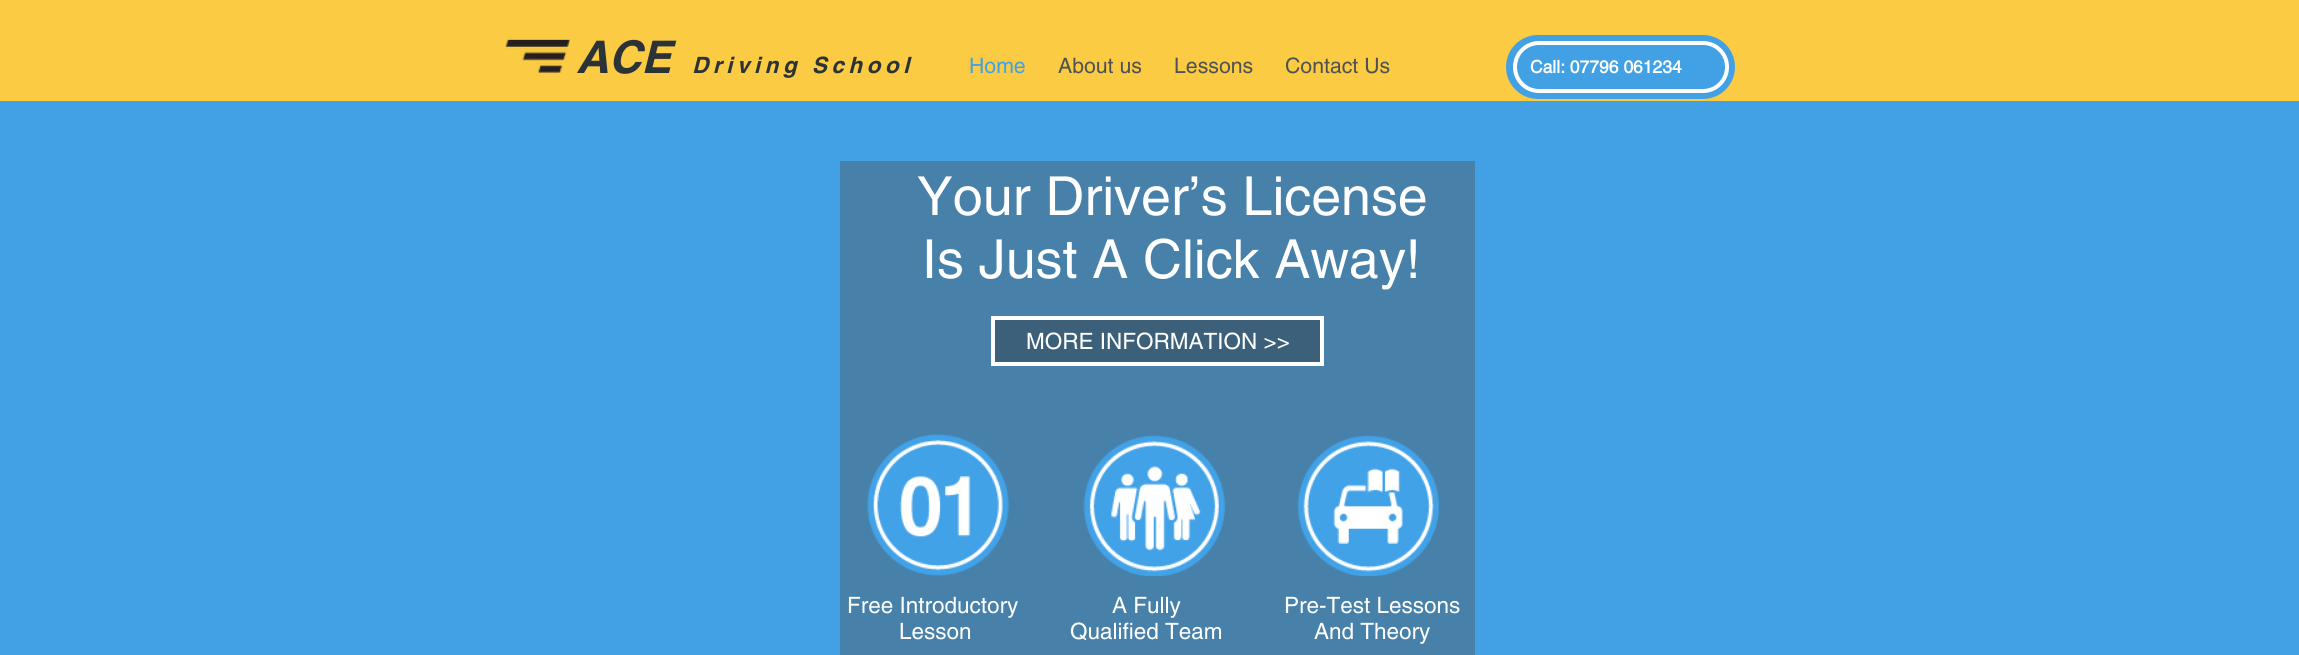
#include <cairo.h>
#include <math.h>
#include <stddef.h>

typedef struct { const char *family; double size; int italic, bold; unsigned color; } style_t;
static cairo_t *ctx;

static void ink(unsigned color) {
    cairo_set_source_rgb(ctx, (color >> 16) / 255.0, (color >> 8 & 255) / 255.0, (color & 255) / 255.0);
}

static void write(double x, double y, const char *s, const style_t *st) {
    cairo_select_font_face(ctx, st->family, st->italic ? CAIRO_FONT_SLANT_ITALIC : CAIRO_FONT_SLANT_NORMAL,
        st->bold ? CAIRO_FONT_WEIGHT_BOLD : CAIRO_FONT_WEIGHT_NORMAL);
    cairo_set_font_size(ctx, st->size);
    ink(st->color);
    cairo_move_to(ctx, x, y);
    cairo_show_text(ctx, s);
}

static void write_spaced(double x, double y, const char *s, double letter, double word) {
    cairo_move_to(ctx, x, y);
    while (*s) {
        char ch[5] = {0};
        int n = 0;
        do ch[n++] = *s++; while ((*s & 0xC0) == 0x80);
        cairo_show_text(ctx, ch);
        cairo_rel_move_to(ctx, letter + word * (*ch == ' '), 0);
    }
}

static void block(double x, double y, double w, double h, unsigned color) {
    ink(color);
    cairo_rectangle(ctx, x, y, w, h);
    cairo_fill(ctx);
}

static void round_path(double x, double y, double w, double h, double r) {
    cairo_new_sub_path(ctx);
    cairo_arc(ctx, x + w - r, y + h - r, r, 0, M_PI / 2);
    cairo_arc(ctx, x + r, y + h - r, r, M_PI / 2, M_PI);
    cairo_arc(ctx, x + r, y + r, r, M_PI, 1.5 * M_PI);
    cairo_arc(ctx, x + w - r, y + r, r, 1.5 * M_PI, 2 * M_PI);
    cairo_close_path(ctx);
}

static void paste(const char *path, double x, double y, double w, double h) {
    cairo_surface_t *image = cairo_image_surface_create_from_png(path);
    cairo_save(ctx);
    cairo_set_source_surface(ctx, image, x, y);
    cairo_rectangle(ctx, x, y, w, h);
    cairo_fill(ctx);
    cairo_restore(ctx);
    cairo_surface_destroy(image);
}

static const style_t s1 = {"helvetica", 45, 1, 1, 0x2c3336};
static const style_t s2 = {"helvetica", 21.25, 0, 0, 0x42a1e5};
static const style_t s3 = {"helvetica", 21.25, 0, 0, 0x4e5253};
static const style_t s4 = {"helvetica", 17.5, 0, 1, 0xffffff};
static const style_t s5 = {"helvetica", 53.75, 0, 0, 0xffffff};
static const style_t s6 = {"helvetica", 22.5, 0, 0, 0xffffff};

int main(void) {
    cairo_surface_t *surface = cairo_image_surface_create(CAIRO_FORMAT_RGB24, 2299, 655);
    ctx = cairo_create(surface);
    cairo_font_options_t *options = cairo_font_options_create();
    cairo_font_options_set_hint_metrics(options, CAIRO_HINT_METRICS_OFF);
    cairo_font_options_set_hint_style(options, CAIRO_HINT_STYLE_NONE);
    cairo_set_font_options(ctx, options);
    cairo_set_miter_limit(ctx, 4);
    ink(0xfacb43);
    cairo_paint(ctx);
    paste("pic1.png", 505, 39, 65, 34);
    write(576, 73, "ACE", &s1);
    cairo_set_font_size(ctx, 22.5);
    write_spaced(692, 73, "Driving School", 4.5, 0);
    write(969, 73, "Home", &s2);
    write(1058, 73, "About us", &s3);
    write(1174, 73, "Lessons", &s3);
    write(1285, 73, "Contact Us", &s3);
    ink(0x42a1e5);
    round_path(1506, 35, 229, 64, 32);
    cairo_fill(ctx);
    round_path(1515, 43, 212, 48, 24);
    ink(0xffffff);
    cairo_set_line_width(ctx, 4);
    cairo_stroke(ctx);
    write(1530, 73, "Call: 07796 061234", &s4);
    block(0, 101, 2299, 554, 0x42a1e5);
    block(840, 161, 635, 494, 0x4781aa);
    write(917, 215, "Your Driver’s License", &s5);
    write(922, 278, "Is Just A Click Away!", &s5);
    ink(0x3c6079);
    cairo_rectangle(ctx, 993, 318, 329, 46);
    cairo_fill_preserve(ctx);
    ink(0xffffff);
    cairo_stroke(ctx);
    write(1026, 349, "MORE INFORMATION >>", &s6);
    paste("pic2.png", 867, 434, 142, 142);
    paste("pic3.png", 1083, 435, 142, 142);
    paste("pic4.png", 1297, 435, 142, 142);
    write(847, 613, "Free Introductory", &s6);
    write(899, 639, "Lesson", &s6);
    write(1112, 613, "A Fully", &s6);
    write(1070, 639, "Qualified Team", &s6);
    write(1284, 613, "Pre-Test Lessons", &s6);
    write(1314, 639, "And Theory", &s6);
    cairo_surface_write_to_png(surface, "screenshot.png");
    cairo_font_options_destroy(options);
    cairo_destroy(ctx);
    cairo_surface_destroy(surface);
    return 0;
}
